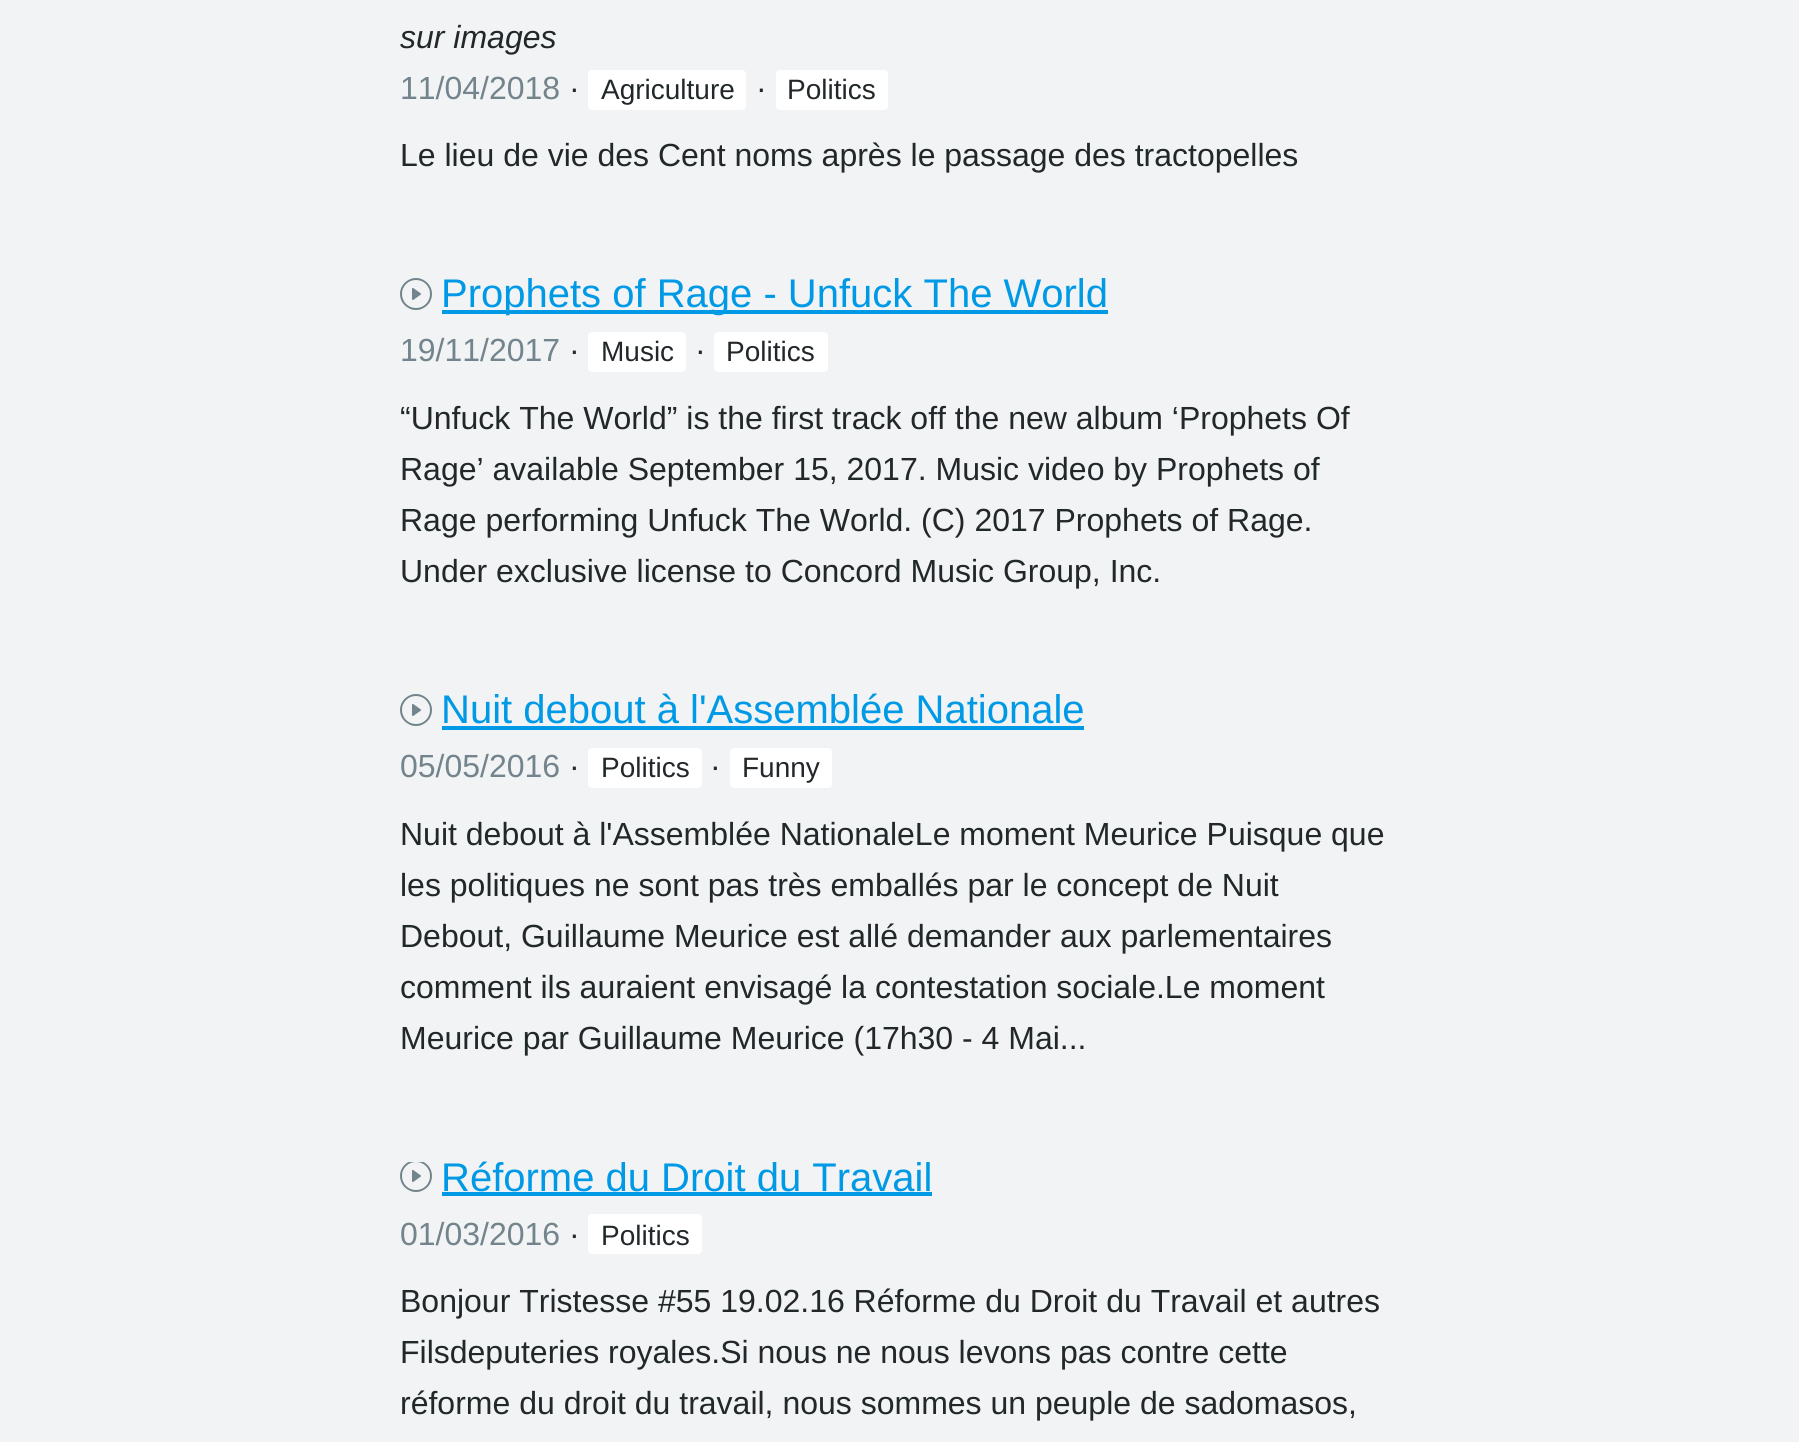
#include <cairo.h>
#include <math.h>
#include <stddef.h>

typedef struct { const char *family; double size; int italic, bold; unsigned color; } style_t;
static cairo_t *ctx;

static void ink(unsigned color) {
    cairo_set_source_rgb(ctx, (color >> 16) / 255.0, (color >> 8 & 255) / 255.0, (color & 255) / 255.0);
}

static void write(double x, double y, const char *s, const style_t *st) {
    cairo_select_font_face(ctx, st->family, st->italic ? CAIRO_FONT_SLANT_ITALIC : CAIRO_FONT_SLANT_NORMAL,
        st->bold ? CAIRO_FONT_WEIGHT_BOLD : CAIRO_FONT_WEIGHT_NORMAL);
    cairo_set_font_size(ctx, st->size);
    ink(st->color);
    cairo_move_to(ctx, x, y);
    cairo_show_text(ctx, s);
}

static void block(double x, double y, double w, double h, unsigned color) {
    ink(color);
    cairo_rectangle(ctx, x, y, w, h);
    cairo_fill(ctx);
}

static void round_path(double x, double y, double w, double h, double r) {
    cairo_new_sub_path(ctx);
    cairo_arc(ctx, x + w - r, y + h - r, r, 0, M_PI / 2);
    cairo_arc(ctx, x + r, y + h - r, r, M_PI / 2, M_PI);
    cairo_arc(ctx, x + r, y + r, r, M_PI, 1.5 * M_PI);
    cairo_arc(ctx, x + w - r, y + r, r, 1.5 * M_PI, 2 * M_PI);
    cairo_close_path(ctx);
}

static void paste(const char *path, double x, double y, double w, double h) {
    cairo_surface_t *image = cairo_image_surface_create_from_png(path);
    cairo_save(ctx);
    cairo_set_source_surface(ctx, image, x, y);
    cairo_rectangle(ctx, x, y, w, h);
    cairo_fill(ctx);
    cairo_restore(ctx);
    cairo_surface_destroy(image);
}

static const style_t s1 = {"Liberation Sans", 32, 1, 0, 0x22282a};
static const style_t s2 = {"Liberation Sans", 32, 0, 0, 0x73848c};
static const style_t s3 = {"Liberation Sans", 32, 0, 0, 0x22282a};
static const style_t s4 = {"Liberation Sans", 28, 0, 0, 0x22282a};
static const style_t s5 = {"Liberation Sans", 40, 0, 0, 0x0099e6};

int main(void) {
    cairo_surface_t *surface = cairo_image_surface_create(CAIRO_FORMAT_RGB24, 1799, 1442);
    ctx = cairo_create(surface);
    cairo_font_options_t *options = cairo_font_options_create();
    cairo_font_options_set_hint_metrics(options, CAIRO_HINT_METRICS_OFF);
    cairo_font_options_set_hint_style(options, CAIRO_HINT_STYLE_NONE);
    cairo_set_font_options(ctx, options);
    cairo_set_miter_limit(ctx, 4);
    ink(0xf1f3f4);
    cairo_paint(ctx);
    write(400, 48, "sur images", &s1);
    write(400, 99, "11/04/2018", &s2);
    write(569, 99, "·", &s3);
    ink(0xffffff);
    round_path(589, 71, 156, 38, 3);
    cairo_fill_preserve(ctx);
    cairo_stroke(ctx);
    write(601, 99, "Agriculture", &s4);
    write(756, 99, "·", &s3);
    ink(0xffffff);
    round_path(777, 71, 110, 38, 3);
    cairo_fill_preserve(ctx);
    cairo_stroke(ctx);
    write(787, 99, "Politics", &s4);
    write(400, 166, "Le lieu de vie des Cent noms après le passage des tractopelles", &s3);
    paste("pic1.png", 400, 278, 32, 32);
    block(442, 310, 666, 4, 0x0099e6);
    write(441, 307, "Prophets of Rage - Unfuck The World", &s5);
    write(400, 361, "19/11/2017", &s2);
    write(569, 361, "·", &s3);
    ink(0xffffff);
    round_path(589, 333, 96, 38, 3);
    cairo_fill_preserve(ctx);
    cairo_stroke(ctx);
    write(601, 361, "Music", &s4);
    write(695, 361, "·", &s3);
    ink(0xffffff);
    round_path(715, 333, 112, 38, 3);
    cairo_fill_preserve(ctx);
    cairo_stroke(ctx);
    write(726, 361, "Politics", &s4);
    write(400, 429, "“Unfuck The World” is the first track off the new album ‘Prophets Of", &s3);
    write(400, 480, "Rage’ available September 15, 2017. Music video by Prophets of", &s3);
    write(400, 531, "Rage performing Unfuck The World. (C) 2017 Prophets of Rage.", &s3);
    write(400, 582, "Under exclusive license to Concord Music Group, Inc.", &s3);
    write(441, 723, "Nuit debout à l'Assemblée Nationale", &s5);
    block(442, 726, 642, 4, 0x0099e6);
    write(400, 777, "05/05/2016", &s2);
    write(569, 777, "·", &s3);
    ink(0xffffff);
    round_path(589, 749, 112, 38, 3);
    cairo_fill_preserve(ctx);
    cairo_stroke(ctx);
    write(601, 777, "Politics", &s4);
    write(710, 777, "·", &s3);
    ink(0xffffff);
    round_path(731, 749, 100, 38, 3);
    cairo_fill_preserve(ctx);
    cairo_stroke(ctx);
    write(742, 777, "Funny", &s4);
    write(400, 845, "Nuit debout à l'Assemblée NationaleLe moment Meurice Puisque que", &s3);
    write(400, 896, "les politiques ne sont pas très emballés par le concept de Nuit", &s3);
    write(400, 947, "Debout, Guillaume Meurice est allé demander aux parlementaires", &s3);
    write(400, 998, "comment ils auraient envisagé la contestation sociale.Le moment", &s3);
    write(400, 1049, "Meurice par Guillaume Meurice (17h30 - 4 Mai...", &s3);
    paste("pic2.png", 400, 694, 32, 32);
    write(441, 1191, "Réforme du Droit du Travail", &s5);
    block(442, 1192, 490, 4, 0x0099e6);
    write(400, 1245, "01/03/2016", &s2);
    write(569, 1245, "·", &s3);
    ink(0xffffff);
    round_path(589, 1215, 112, 38, 3);
    cairo_fill_preserve(ctx);
    cairo_stroke(ctx);
    write(601, 1245, "Politics", &s4);
    write(400, 1312, "Bonjour Tristesse #55 19.02.16 Réforme du Droit du Travail et autres", &s3);
    write(400, 1363, "Filsdeputeries royales.Si nous ne nous levons pas contre cette", &s3);
    write(400, 1414, "réforme du droit du travail, nous sommes un peuple de sadomasos,", &s3);
    paste("pic3.png", 400, 1162, 32, 30);
    cairo_surface_write_to_png(surface, "screenshot.png");
    cairo_font_options_destroy(options);
    cairo_destroy(ctx);
    cairo_surface_destroy(surface);
    return 0;
}
